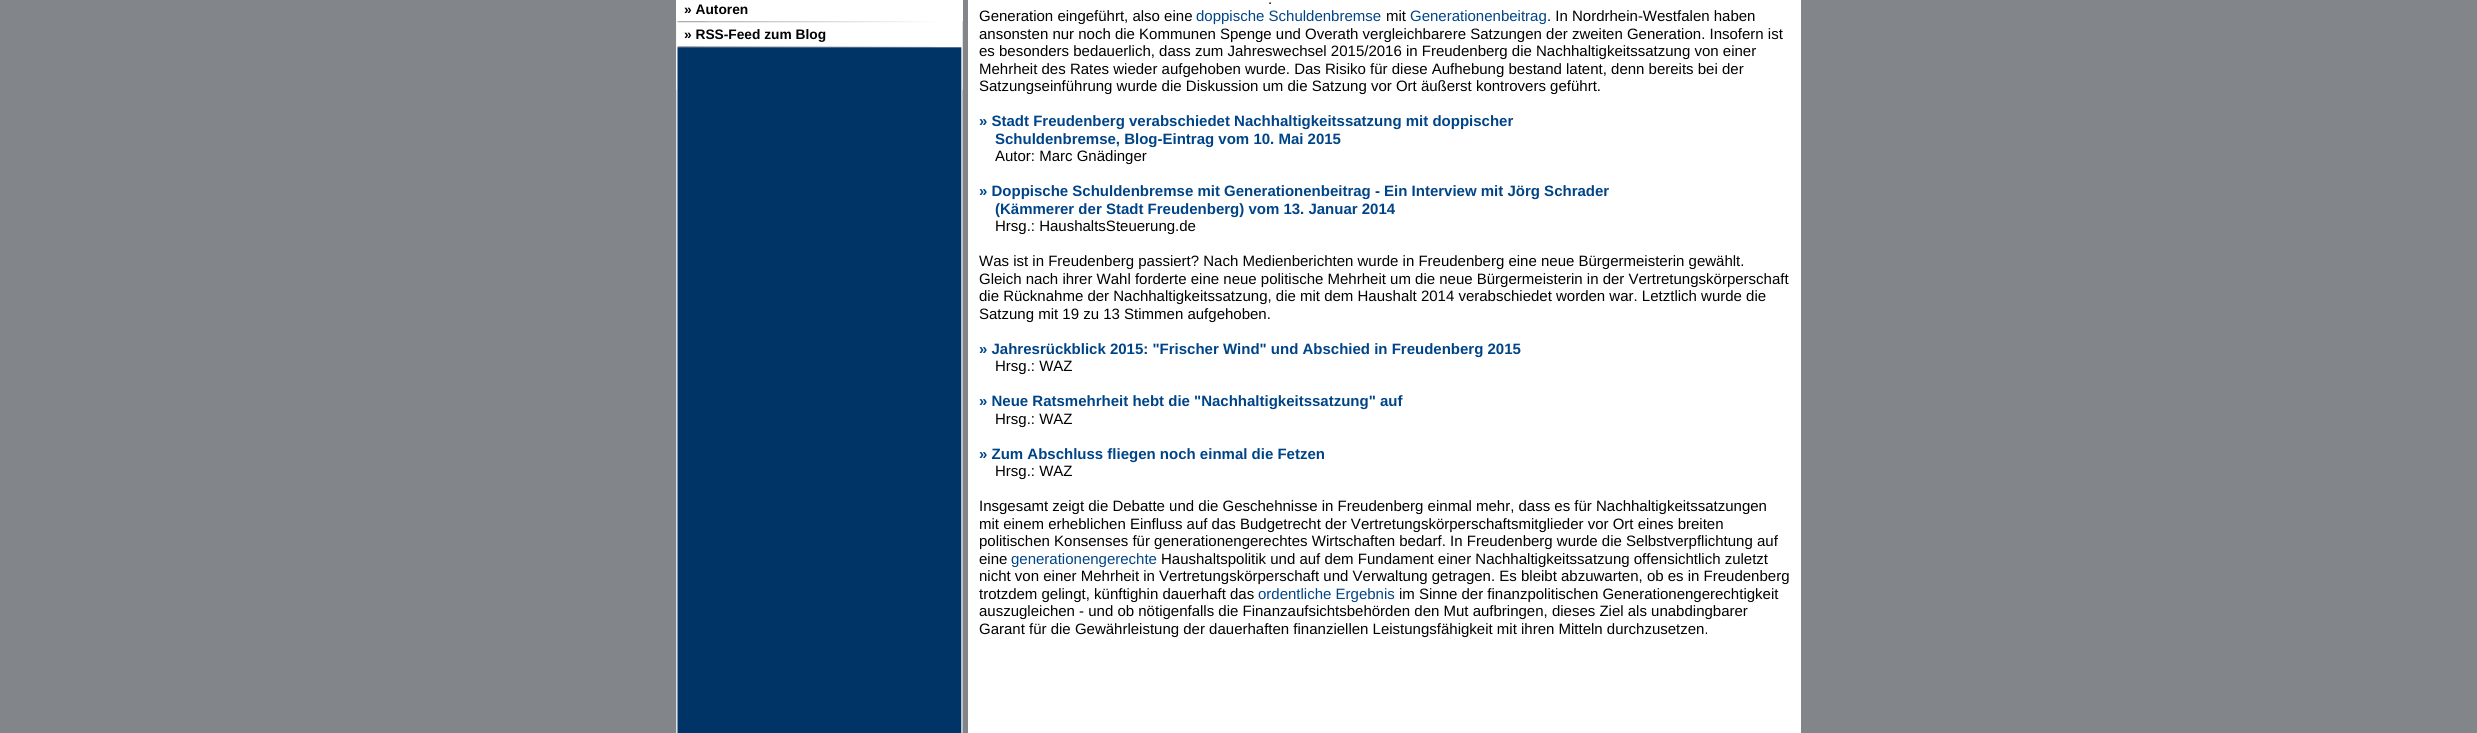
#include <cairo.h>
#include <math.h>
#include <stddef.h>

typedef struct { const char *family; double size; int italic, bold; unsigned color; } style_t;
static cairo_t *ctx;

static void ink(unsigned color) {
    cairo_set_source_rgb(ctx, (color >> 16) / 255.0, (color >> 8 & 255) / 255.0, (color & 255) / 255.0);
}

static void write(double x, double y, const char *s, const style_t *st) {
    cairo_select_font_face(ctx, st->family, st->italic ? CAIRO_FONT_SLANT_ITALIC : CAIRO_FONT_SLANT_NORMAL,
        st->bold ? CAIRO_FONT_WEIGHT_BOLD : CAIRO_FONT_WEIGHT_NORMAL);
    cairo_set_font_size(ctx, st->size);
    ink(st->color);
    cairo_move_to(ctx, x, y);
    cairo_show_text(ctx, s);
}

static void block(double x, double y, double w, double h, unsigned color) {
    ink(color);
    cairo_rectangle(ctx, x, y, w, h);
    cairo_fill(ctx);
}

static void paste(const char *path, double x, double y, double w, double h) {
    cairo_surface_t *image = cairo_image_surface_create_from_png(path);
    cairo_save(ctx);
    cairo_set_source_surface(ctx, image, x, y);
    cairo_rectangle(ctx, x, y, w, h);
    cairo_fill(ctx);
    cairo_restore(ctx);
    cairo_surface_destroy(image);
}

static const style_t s1 = {"Liberation Sans", 13.75, 0, 1, 0x000000};
static const style_t s2 = {"Liberation Sans", 15, 0, 0, 0x000000};
static const style_t s3 = {"Liberation Sans", 15, 0, 0, 0x004488};
static const style_t s4 = {"Liberation Sans", 15, 0, 1, 0x004488};

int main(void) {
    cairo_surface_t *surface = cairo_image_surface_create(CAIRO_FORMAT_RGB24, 2477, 733);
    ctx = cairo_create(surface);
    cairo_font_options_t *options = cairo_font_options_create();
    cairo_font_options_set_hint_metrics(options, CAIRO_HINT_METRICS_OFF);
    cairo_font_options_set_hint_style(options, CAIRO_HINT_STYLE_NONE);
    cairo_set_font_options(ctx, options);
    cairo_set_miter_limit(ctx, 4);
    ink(0x82858a);
    cairo_paint(ctx);
    paste("pic1.png", 676, 21, 287, 712);
    block(676, 0, 287, 21, 0xffffff);
    write(684, 14, "» Autoren", &s1);
    paste("pic2.png", 676, 21, 287, 25);
    write(684, 39, "» RSS-Feed zum Blog", &s1);
    paste("pic3.png", 676, 46, 287, 44);
    block(968, 0, 833, 733, 0xffffff);
    write(1268, 4, ".", &s2);
    write(979, 21, "Generation eingeführt, also eine", &s2);
    write(1196, 21, "doppische Schuldenbremse", &s3);
    write(1386, 21, "mit", &s2);
    write(1410, 21, "Generationenbeitrag", &s3);
    write(1547, 21, ". In Nordrhein-Westfalen haben", &s2);
    write(979, 39, "ansonsten nur noch die Kommunen Spenge und Overath vergleichbarere Satzungen der zweiten Generation. Insofern ist", &s2);
    write(979, 56, "es besonders bedauerlich, dass zum Jahreswechsel 2015/2016 in Freudenberg die Nachhaltigkeitssatzung von einer", &s2);
    write(979, 74, "Mehrheit des Rates wieder aufgehoben wurde. Das Risiko für diese Aufhebung bestand latent, denn bereits bei der", &s2);
    write(979, 91, "Satzungseinführung wurde die Diskussion um die Satzung vor Ort äußerst kontrovers geführt.", &s2);
    write(979, 126, "» Stadt Freudenberg verabschiedet Nachhaltigkeitssatzung mit doppischer", &s4);
    write(995, 144, "Schuldenbremse, Blog-Eintrag vom 10. Mai 2015", &s4);
    write(995, 161, "Autor: Marc Gnädinger", &s2);
    write(979, 196, "» Doppische Schuldenbremse mit Generationenbeitrag - Ein Interview mit Jörg Schrader", &s4);
    write(995, 214, "(Kämmerer der Stadt Freudenberg) vom 13. Januar 2014", &s4);
    write(995, 231, "Hrsg.: HaushaltsSteuerung.de", &s2);
    write(979, 266, "Was ist in Freudenberg passiert? Nach Medienberichten wurde in Freudenberg eine neue Bürgermeisterin gewählt.", &s2);
    write(979, 284, "Gleich nach ihrer Wahl forderte eine neue politische Mehrheit um die neue Bürgermeisterin in der Vertretungskörperschaft", &s2);
    write(979, 301, "die Rücknahme der Nachhaltigkeitssatzung, die mit dem Haushalt 2014 verabschiedet worden war. Letztlich wurde die", &s2);
    write(979, 319, "Satzung mit 19 zu 13 Stimmen aufgehoben.", &s2);
    write(979, 354, "» Jahresrückblick 2015: \"Frischer Wind\" und Abschied in Freudenberg 2015", &s4);
    write(995, 371, "Hrsg.: WAZ", &s2);
    write(979, 406, "» Neue Ratsmehrheit hebt die \"Nachhaltigkeitssatzung\" auf", &s4);
    write(995, 424, "Hrsg.: WAZ", &s2);
    write(979, 459, "» Zum Abschluss fliegen noch einmal die Fetzen", &s4);
    write(995, 476, "Hrsg.: WAZ", &s2);
    write(979, 511, "Insgesamt zeigt die Debatte und die Geschehnisse in Freudenberg einmal mehr, dass es für Nachhaltigkeitssatzungen", &s2);
    write(979, 529, "mit einem erheblichen Einfluss auf das Budgetrecht der Vertretungskörperschaftsmitglieder vor Ort eines breiten", &s2);
    write(979, 546, "politischen Konsenses für generationengerechtes Wirtschaften bedarf. In Freudenberg wurde die Selbstverpflichtung auf", &s2);
    write(979, 564, "eine", &s2);
    write(1011, 564, "generationengerechte", &s3);
    write(1161, 564, "Haushaltspolitik und auf dem Fundament einer Nachhaltigkeitssatzung offensichtlich zuletzt", &s2);
    write(979, 581, "nicht von einer Mehrheit in Vertretungskörperschaft und Verwaltung getragen. Es bleibt abzuwarten, ob es in Freudenberg", &s2);
    write(979, 599, "trotzdem gelingt, künftighin dauerhaft das", &s2);
    write(1258, 599, "ordentliche Ergebnis", &s3);
    write(1399, 599, "im Sinne der finanzpolitischen Generationengerechtigkeit", &s2);
    write(979, 616, "auszugleichen - und ob nötigenfalls die Finanzaufsichtsbehörden den Mut aufbringen, dieses Ziel als unabdingbarer", &s2);
    write(979, 634, "Garant für die Gewährleistung der dauerhaften finanziellen Leistungsfähigkeit mit ihren Mitteln durchzusetzen.", &s2);
    cairo_surface_write_to_png(surface, "screenshot.png");
    cairo_font_options_destroy(options);
    cairo_destroy(ctx);
    cairo_surface_destroy(surface);
    return 0;
}
